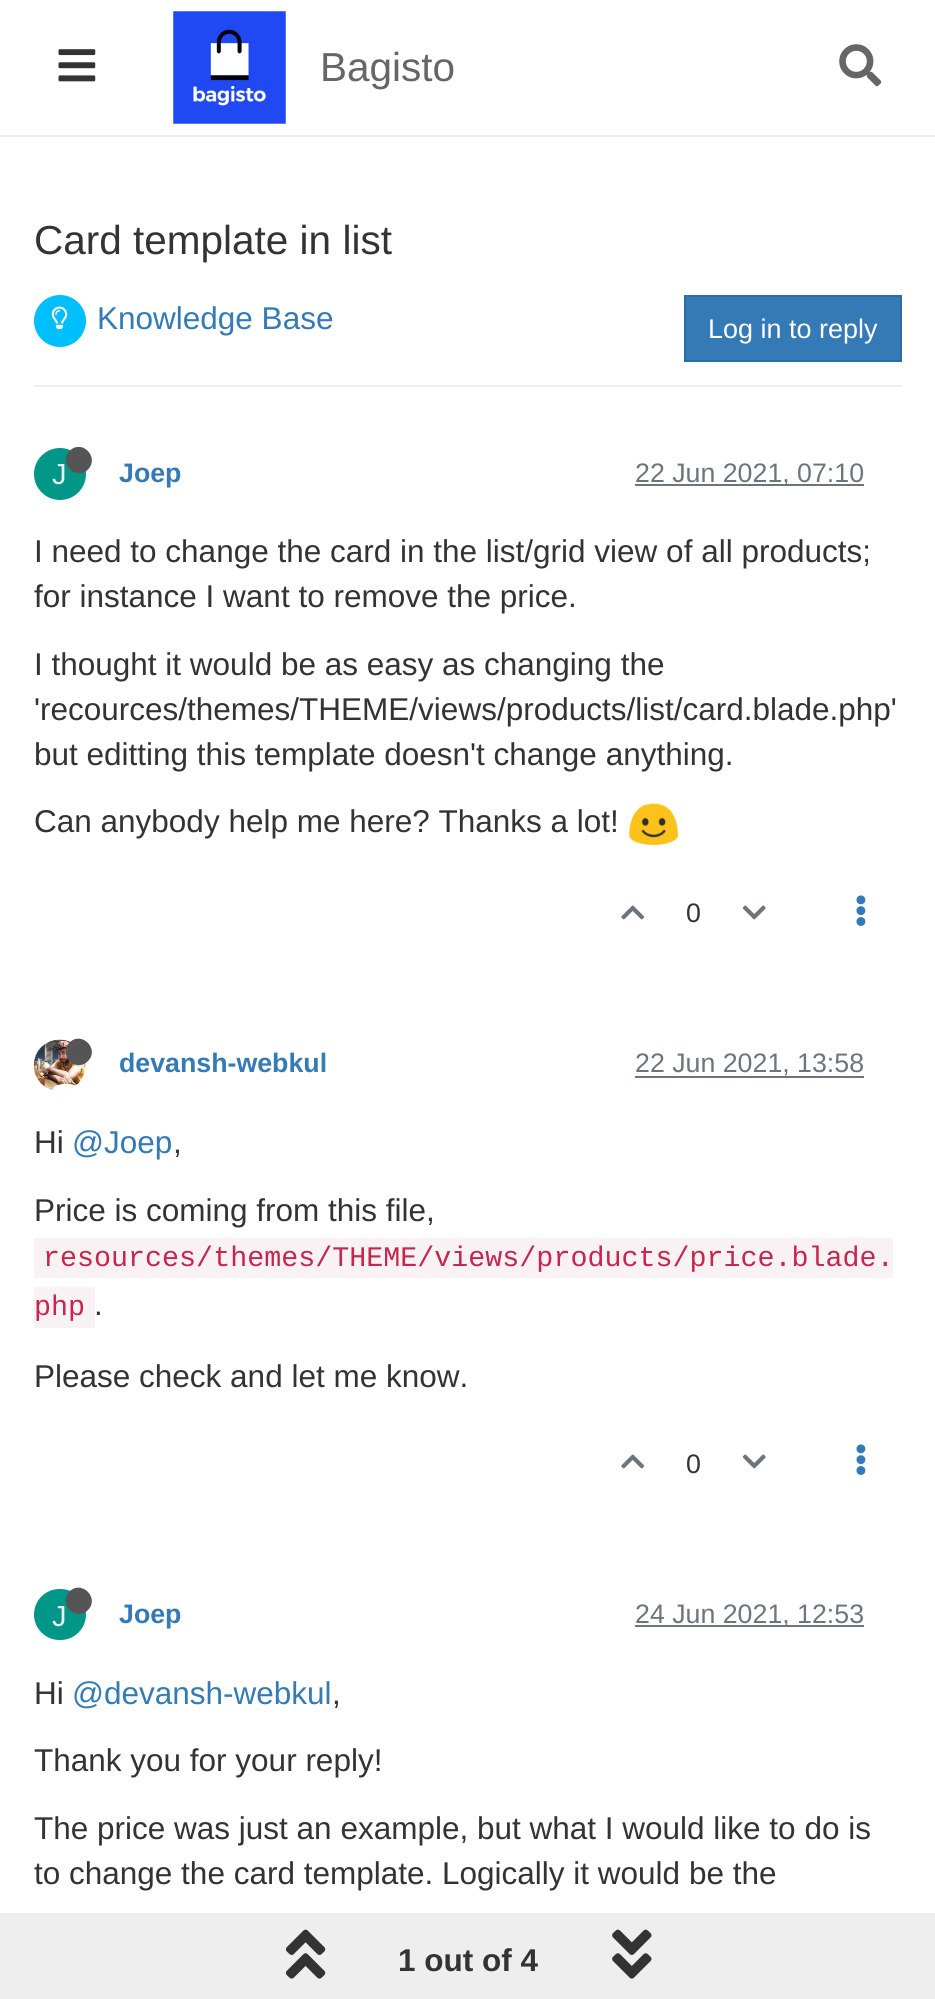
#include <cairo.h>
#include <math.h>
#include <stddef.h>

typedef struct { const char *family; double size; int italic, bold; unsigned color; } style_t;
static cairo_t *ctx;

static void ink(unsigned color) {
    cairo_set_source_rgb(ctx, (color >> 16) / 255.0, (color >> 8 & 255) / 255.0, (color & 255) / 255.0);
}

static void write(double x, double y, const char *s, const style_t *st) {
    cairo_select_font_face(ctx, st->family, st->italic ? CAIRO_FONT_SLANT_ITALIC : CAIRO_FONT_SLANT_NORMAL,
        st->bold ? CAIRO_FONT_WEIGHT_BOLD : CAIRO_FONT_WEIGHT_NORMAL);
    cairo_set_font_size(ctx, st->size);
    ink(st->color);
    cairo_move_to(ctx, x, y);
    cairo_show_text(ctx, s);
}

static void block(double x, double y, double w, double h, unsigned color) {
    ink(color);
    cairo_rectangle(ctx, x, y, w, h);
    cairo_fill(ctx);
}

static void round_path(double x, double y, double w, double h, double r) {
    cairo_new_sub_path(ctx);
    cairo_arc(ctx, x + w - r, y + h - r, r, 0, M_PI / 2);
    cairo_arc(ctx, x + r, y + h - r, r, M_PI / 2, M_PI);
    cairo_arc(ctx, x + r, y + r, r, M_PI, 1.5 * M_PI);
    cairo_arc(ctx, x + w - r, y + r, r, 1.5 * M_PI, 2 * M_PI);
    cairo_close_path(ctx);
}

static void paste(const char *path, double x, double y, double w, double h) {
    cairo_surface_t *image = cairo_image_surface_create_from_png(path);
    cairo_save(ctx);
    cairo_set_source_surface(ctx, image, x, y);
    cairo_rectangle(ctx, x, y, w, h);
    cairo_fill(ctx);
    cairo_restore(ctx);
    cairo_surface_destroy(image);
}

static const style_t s1 = {"Liberation Sans", 40.5, 0, 0, 0x666666};
static const style_t s2 = {"Liberation Sans", 40.5, 0, 0, 0x333333};
static const style_t s3 = {"Liberation Sans", 31.5, 0, 0, 0x337ab7};
static const style_t s4 = {"Liberation Sans", 27, 0, 0, 0xffffff};
static const style_t s5 = {"Liberation Sans", 29, 0, 0, 0xeeeeee};
static const style_t s6 = {"Liberation Sans", 26.75, 0, 1, 0x337ab7};
static const style_t s7 = {"Liberation Sans", 26.75, 0, 0, 0x6c757d};
static const style_t s8 = {"Liberation Sans", 31.5, 0, 0, 0x333333};
static const style_t s9 = {"Liberation Sans", 26.75, 0, 0, 0x333333};
static const style_t s10 = {"Liberation Mono", 28.35, 0, 0, 0xc7254e};
static const style_t s11 = {"Liberation Sans", 31.5, 0, 1, 0x333333};

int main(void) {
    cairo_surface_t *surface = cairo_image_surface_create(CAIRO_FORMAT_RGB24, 935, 1999);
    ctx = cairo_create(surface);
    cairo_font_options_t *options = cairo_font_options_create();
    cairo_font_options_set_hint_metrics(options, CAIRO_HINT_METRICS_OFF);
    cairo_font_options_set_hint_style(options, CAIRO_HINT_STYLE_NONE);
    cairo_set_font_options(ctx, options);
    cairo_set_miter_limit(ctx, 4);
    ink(0xffffff);
    cairo_paint(ctx);
    block(0, 135, 935, 2, 0xeeeeee);
    paste("pic1.png", 58, 49, 38, 33);
    paste("pic2.png", 173, 11, 113, 113);
    write(320, 81, "Bagisto", &s1);
    paste("pic3.png", 839, 44, 43, 43);
    write(34, 254, "Card template in list", &s2);
    block(34, 385, 868, 2, 0xeeeeee);
    ink(0x00bfff);
    cairo_new_path(ctx);
    cairo_arc(ctx, 60, 321, 26, 0, 2 * M_PI);
    cairo_fill(ctx);
    paste("pic4.png", 51, 306, 17, 24);
    write(97, 329, "Knowledge Base", &s3);
    cairo_rectangle(ctx, 685, 296, 216, 65);
    cairo_fill_preserve(ctx);
    ink(0x2e6da4);
    cairo_stroke(ctx);
    write(708, 338, "Log in to reply", &s4);
    ink(0x009688);
    cairo_new_path(ctx);
    cairo_arc(ctx, 60, 474, 26, 0, 2 * M_PI);
    cairo_fill(ctx);
    write(52, 484, "J", &s5);
    ink(0x555555);
    cairo_new_path(ctx);
    cairo_move_to(ctx, 69.5, 451);
    cairo_curve_to(ctx, 81.5, 438.5, 100, 457, 88, 469.5);
    cairo_curve_to(ctx, 76, 481.5, 57.5, 463, 69.5, 451);
    cairo_close_path(ctx);
    cairo_fill(ctx);
    write(119, 482, "Joep", &s6);
    block(635, 484, 229, 2, 0x6c757d);
    write(635, 482, "22 Jun 2021, 07:10", &s7);
    write(34, 562, "I need to change the card in the list/grid view of all products;", &s8);
    write(34, 607, "for instance I want to remove the price.", &s8);
    write(34, 675, "I thought it would be as easy as changing the", &s8);
    write(34, 720, "'recources/themes/THEME/views/products/list/card.blade.php'", &s8);
    write(34, 765, "but editting this template doesn't change anything.", &s8);
    write(34, 832, "Can anybody help me here? Thanks a lot!", &s8);
    paste("pic5.png", 628, 803, 51, 43);
    paste("pic6.png", 621, 905, 24, 15);
    write(686, 922, "0", &s9);
    paste("pic7.png", 742, 905, 24, 15);
    paste("pic8.png", 856, 895, 10, 31);
    paste("pic9.png", 33, 1039, 53, 52);
    ink(0x555555);
    cairo_new_path(ctx);
    cairo_move_to(ctx, 69.5, 1042.5);
    cairo_curve_to(ctx, 81.5, 1030.5, 100, 1049, 88, 1061);
    cairo_curve_to(ctx, 76, 1073.5, 57.5, 1055, 69.5, 1042.5);
    cairo_close_path(ctx);
    cairo_fill(ctx);
    write(119, 1072, "devansh-webkul", &s6);
    write(635, 1072, "22 Jun 2021, 13:58", &s7);
    block(635, 1076, 229, 2, 0x6c757d);
    write(34, 1153, "Hi", &s8);
    write(72, 1153, "@Joep", &s3);
    write(173, 1153, ",", &s8);
    write(34, 1221, "Price is coming from this file,", &s8);
    block(34, 1238, 859, 40, 0xf9f2f4);
    write(43, 1266, "resources/themes/THEME/views/products/price.blade.", &s10);
    block(34, 1287, 61, 41, 0xf9f2f4);
    write(34, 1315, "php", &s10);
    write(94, 1315, ".", &s8);
    write(34, 1387, "Please check and let me know.", &s8);
    paste("pic6.png", 621, 1454, 24, 15);
    write(686, 1473, "0", &s9);
    paste("pic7.png", 742, 1454, 24, 15);
    paste("pic8.png", 856, 1444, 10, 31);
    ink(0x009688);
    round_path(34, 1589, 52, 51, 25.5);
    cairo_fill(ctx);
    write(52, 1626, "J", &s5);
    ink(0x555555);
    cairo_new_path(ctx);
    cairo_move_to(ctx, 69.5, 1591.5);
    cairo_curve_to(ctx, 81.5, 1579.5, 100, 1598, 88, 1610);
    cairo_curve_to(ctx, 76, 1622.5, 57.5, 1604, 69.5, 1591.5);
    cairo_close_path(ctx);
    cairo_fill(ctx);
    write(119, 1623, "Joep", &s6);
    block(635, 1625, 229, 2, 0x6c757d);
    write(635, 1623, "24 Jun 2021, 12:53", &s7);
    write(34, 1704, "Hi", &s8);
    write(72, 1704, "@devansh-webkul", &s3);
    write(332, 1704, ",", &s8);
    write(34, 1771, "Thank you for your reply!", &s8);
    write(34, 1839, "The price was just an example, but what I would like to do is", &s8);
    write(34, 1884, "to change the card template. Logically it would be the", &s8);
    block(0, 1913, 935, 86, 0xeeeeee);
    paste("pic10.png", 285, 1929, 41, 50);
    write(398, 1971, "1 out of 4", &s11);
    paste("pic11.png", 612, 1929, 40, 50);
    cairo_surface_write_to_png(surface, "screenshot.png");
    cairo_font_options_destroy(options);
    cairo_destroy(ctx);
    cairo_surface_destroy(surface);
    return 0;
}
